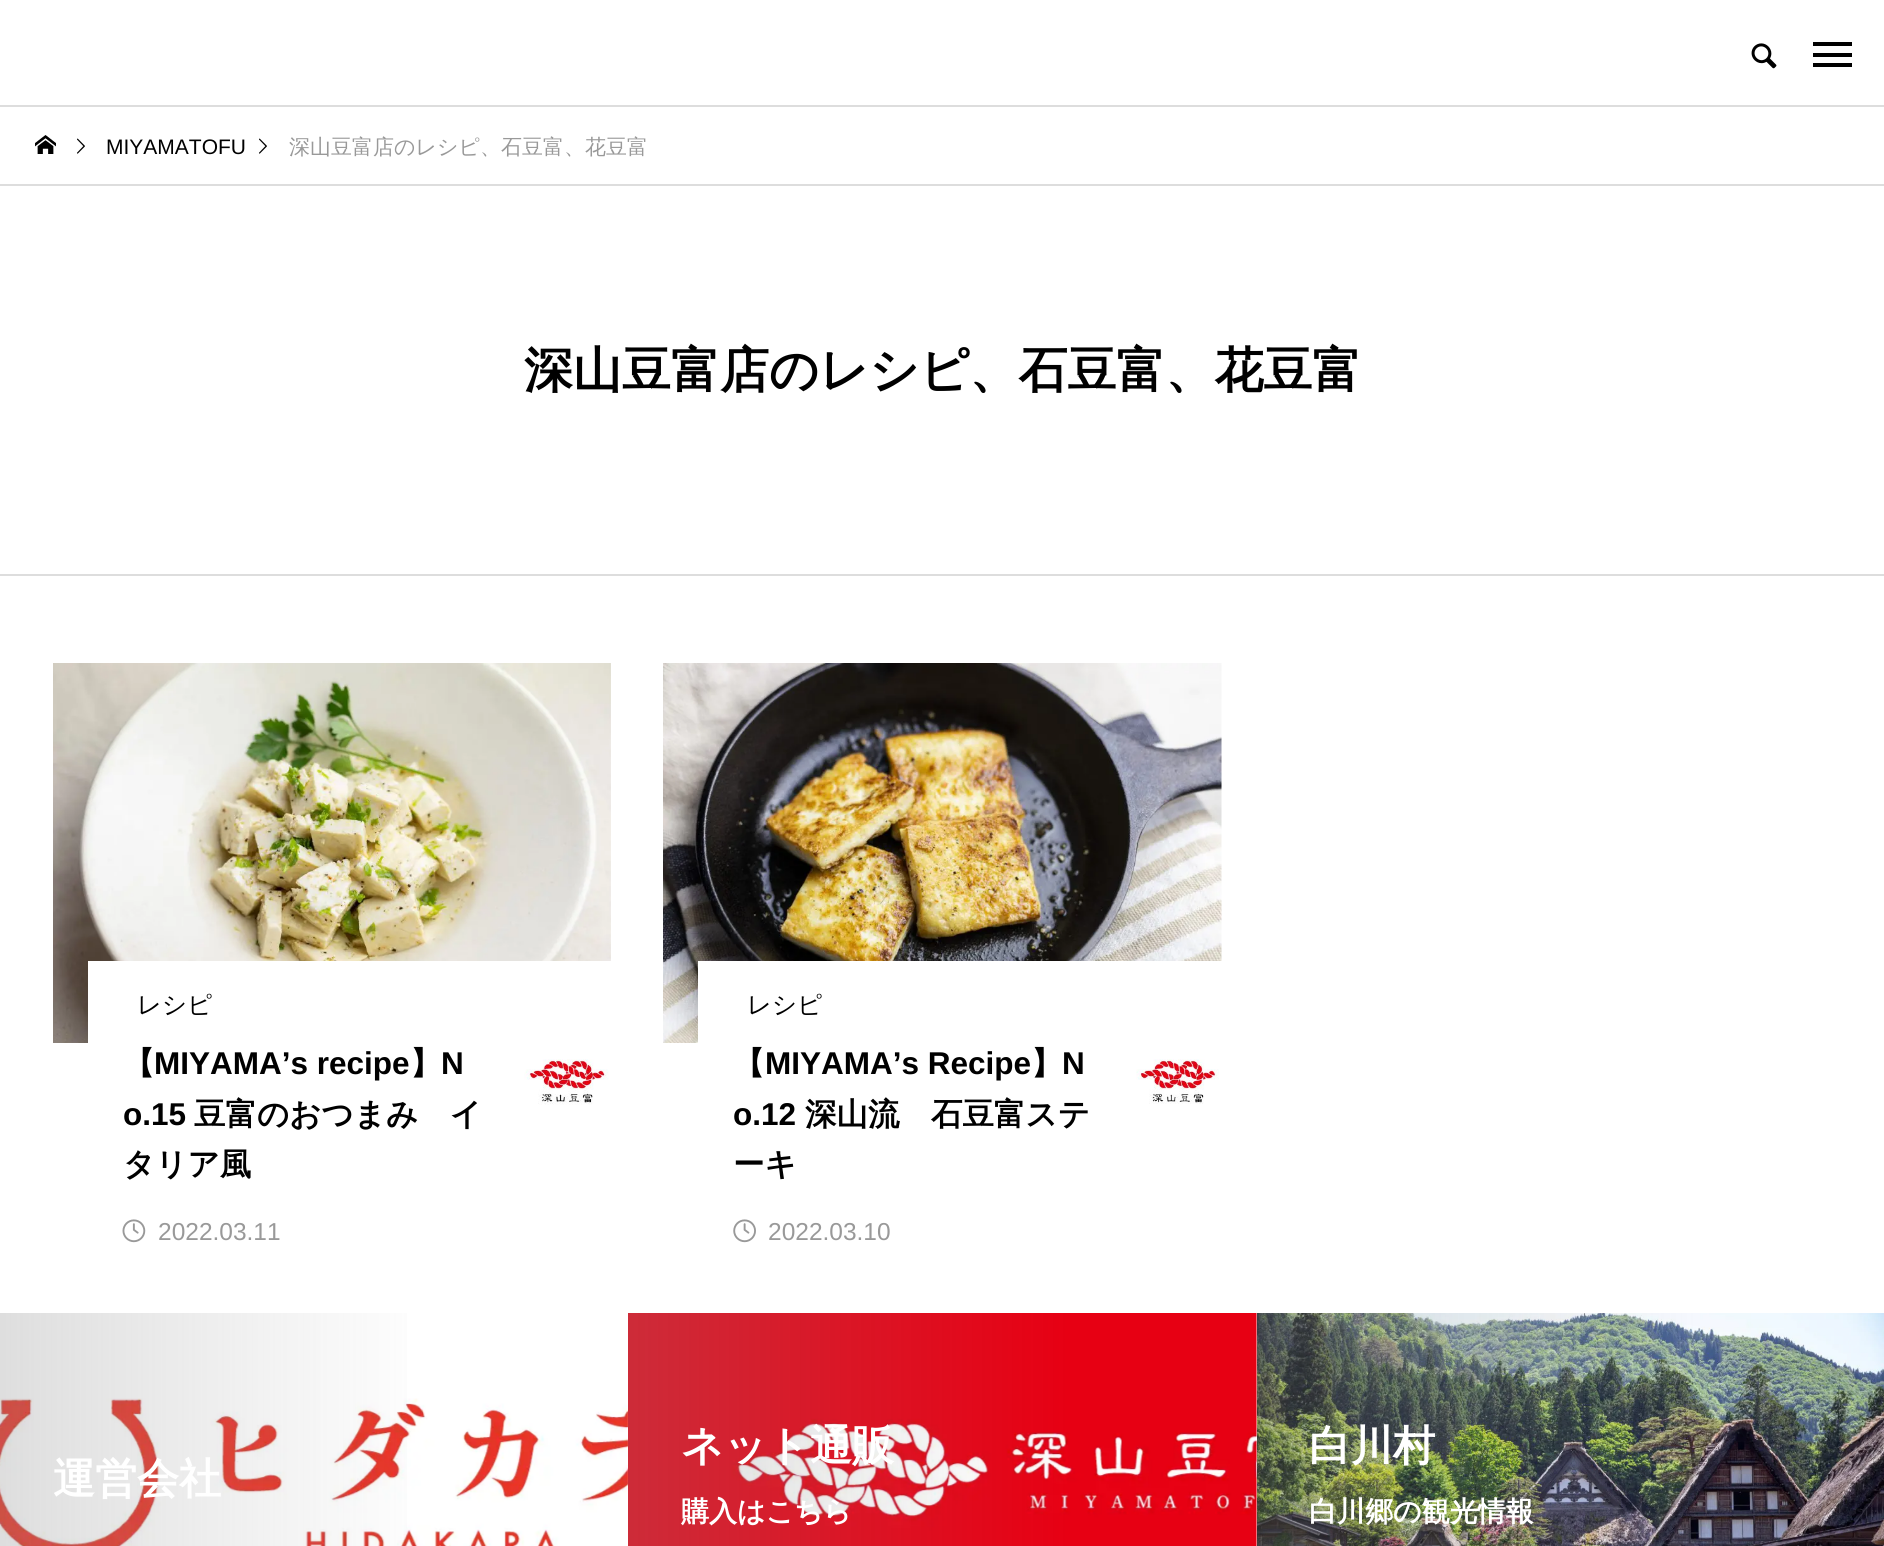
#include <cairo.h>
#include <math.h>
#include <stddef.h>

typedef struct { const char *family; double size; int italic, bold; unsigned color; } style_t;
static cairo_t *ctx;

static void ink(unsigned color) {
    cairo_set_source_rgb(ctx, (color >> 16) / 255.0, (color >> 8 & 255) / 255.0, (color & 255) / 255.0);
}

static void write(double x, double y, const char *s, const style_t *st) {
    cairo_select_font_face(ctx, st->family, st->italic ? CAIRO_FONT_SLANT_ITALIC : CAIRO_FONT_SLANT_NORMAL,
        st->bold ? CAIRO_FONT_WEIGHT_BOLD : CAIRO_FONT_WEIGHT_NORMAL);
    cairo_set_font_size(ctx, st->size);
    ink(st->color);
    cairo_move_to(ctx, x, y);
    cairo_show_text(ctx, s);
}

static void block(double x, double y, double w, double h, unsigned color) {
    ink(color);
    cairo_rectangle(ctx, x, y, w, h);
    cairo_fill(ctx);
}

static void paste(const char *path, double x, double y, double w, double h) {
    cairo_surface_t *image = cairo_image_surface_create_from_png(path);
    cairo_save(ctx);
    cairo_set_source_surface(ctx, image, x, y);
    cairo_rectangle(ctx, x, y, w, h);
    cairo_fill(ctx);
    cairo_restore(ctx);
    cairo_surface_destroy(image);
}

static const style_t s1 = {"Liberation Sans", 21, 0, 0, 0x000000};
static const style_t s2 = {"WenQuanYi Zen Hei Medium", 21, 0, 0, 0x999999};
static const style_t s3 = {"WenQuanYi Zen Hei", 49, 0, 1, 0x000000};
static const style_t s4 = {"WenQuanYi Zen Hei Medium", 24.5, 0, 0, 0x000000};
static const style_t s5 = {"WenQuanYi Zen Hei", 31.5, 0, 1, 0x000000};
static const style_t s6 = {"Liberation Sans", 31.5, 0, 1, 0x000000};
static const style_t s7 = {"Liberation Sans", 24.5, 0, 0, 0x999999};
static const style_t s8 = {"WenQuanYi Zen Hei", 42, 0, 1, 0xffffff};
static const style_t s9 = {"WenQuanYi Zen Hei", 28, 0, 1, 0xffffff};

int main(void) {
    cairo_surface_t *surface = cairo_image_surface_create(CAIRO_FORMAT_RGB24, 1884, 1546);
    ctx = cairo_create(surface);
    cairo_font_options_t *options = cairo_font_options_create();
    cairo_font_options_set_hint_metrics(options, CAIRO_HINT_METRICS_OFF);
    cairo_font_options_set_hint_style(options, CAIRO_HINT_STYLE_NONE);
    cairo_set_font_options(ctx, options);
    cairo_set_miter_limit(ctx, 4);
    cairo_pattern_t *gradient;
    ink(0xffffff);
    cairo_paint(ctx);
    paste("pic1.png", 1751, 43, 26, 26);
    block(1813, 42, 39, 4, 0x000000);
    block(1813, 53, 39, 4, 0x000000);
    block(1813, 63, 39, 4, 0x000000);
    block(0, 105, 1884, 2, 0xdddddd);
    paste("pic2.png", 35, 135, 21, 19);
    paste("pic3.png", 77, 138, 8, 16);
    write(106, 154, "MIYAMATOFU", &s1);
    paste("pic3.png", 259, 138, 8, 16);
    write(289, 154, "深山豆富店のレシピ、石豆富、花豆富", &s2);
    block(0, 184, 1884, 2, 0xdddddd);
    block(0, 574, 1884, 2, 0xdddddd);
    write(524, 387, "深山豆富店のレシピ、石豆富、花豆富", &s3);
    paste("pic4.png", 53, 663, 558, 380);
    block(88, 961, 523, 82, 0xffffff);
    write(137, 1013, "レシピ", &s4);
    write(123, 1074, "【", &s5);
    write(154, 1074, "MIYAMA’s recipe", &s6);
    write(410, 1074, "】", &s5);
    write(441, 1074, "N", &s6);
    write(123, 1125, "o.15", &s6);
    write(194, 1125, "豆富のおつまみ　イ", &s5);
    write(123, 1175, "タリア風", &s5);
    paste("pic5.png", 524, 1059, 85, 46);
    paste("pic6.png", 122, 1219, 24, 24);
    write(158, 1240, "2022.03.11", &s7);
    paste("pic7.png", 663, 663, 559, 380);
    block(698, 961, 524, 82, 0xffffff);
    write(747, 1013, "レシピ", &s4);
    write(733, 1074, "【", &s5);
    write(765, 1074, "MIYAMA’s Recipe", &s6);
    write(1031, 1074, "】", &s5);
    write(1062, 1074, "N", &s6);
    write(733, 1125, "o.12", &s6);
    write(805, 1125, "深山流　石豆富ステ", &s5);
    write(733, 1175, "ーキ", &s5);
    paste("pic8.png", 1136, 1059, 83, 45);
    paste("pic9.png", 733, 1219, 23, 24);
    write(768, 1240, "2022.03.10", &s7);
    paste("pic10.png", 0, 1398, 628, 148);
    gradient = cairo_pattern_create_linear(0, 1470, 439, 1470);
    cairo_pattern_add_color_stop_rgba(gradient, 0, 0.569, 0.569, 0.569, 0.3);
    cairo_pattern_add_color_stop_rgba(gradient, 1, 0.569, 0.569, 0.569, 0);
    cairo_set_source(ctx, gradient);
    cairo_pattern_destroy(gradient);
    cairo_rectangle(ctx, 0, 1313, 407, 233);
    cairo_fill(ctx);
    write(53, 1493, "運営会社", &s8);
    paste("pic11.png", 628, 1313, 629, 233);
    write(681, 1460, "ネット通販", &s8);
    write(681, 1521, "購入はこちら", &s9);
    paste("pic12.png", 1257, 1313, 627, 233);
    write(1309, 1460, "白川村", &s8);
    write(1309, 1521, "白川郷の観光情報", &s9);
    cairo_surface_write_to_png(surface, "screenshot.png");
    cairo_font_options_destroy(options);
    cairo_destroy(ctx);
    cairo_surface_destroy(surface);
    return 0;
}
